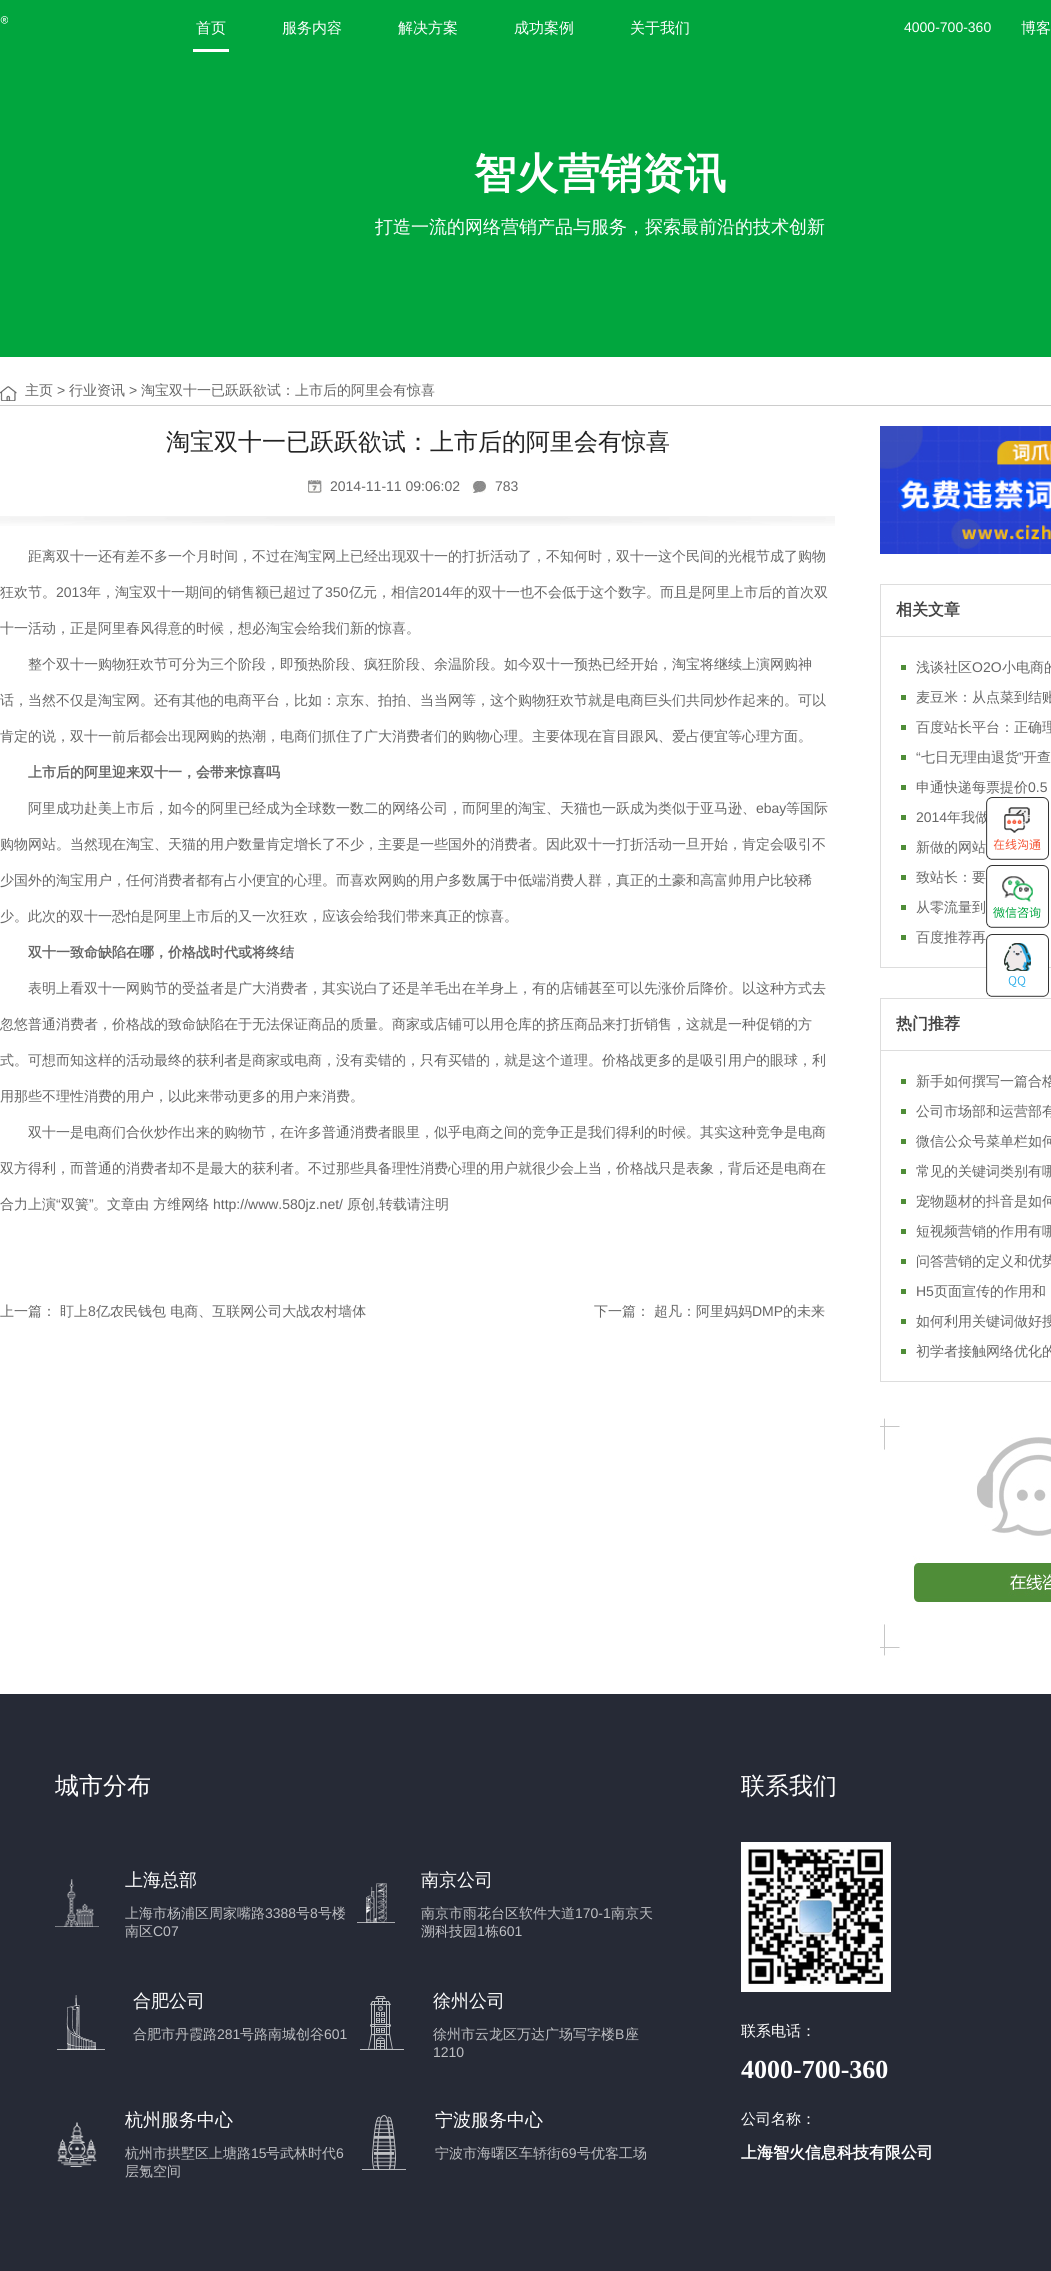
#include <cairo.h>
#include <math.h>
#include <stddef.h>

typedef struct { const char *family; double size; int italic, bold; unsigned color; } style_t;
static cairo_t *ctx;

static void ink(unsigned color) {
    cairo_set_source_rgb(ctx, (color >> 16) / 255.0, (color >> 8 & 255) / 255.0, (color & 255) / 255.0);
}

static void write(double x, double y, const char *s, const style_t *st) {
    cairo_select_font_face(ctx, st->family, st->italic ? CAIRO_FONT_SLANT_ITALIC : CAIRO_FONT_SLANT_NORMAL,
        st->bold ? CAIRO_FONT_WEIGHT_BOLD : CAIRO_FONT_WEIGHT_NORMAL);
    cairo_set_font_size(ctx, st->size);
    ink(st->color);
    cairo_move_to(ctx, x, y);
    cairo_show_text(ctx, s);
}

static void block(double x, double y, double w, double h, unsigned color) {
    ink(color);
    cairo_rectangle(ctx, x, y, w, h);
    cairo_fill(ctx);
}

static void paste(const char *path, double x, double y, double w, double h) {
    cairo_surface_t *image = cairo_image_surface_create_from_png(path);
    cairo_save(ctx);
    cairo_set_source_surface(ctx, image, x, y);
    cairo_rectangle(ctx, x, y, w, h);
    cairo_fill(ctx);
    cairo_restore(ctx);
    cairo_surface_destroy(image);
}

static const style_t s1 = {"WenQuanYi Zen Hei Medium", 15, 0, 0, 0xffffff};
static const style_t s2 = {"Liberation Sans", 14, 0, 0, 0xffffff};
static const style_t s3 = {"WenQuanYi Zen Hei", 42, 0, 1, 0xffffff};
static const style_t s4 = {"WenQuanYi Zen Hei Medium", 18, 0, 0, 0xffffff};
static const style_t s5 = {"WenQuanYi Zen Hei Medium", 14, 0, 0, 0x666666};
static const style_t s6 = {"Liberation Sans", 14, 0, 0, 0x666666};
static const style_t s7 = {"WenQuanYi Zen Hei Medium", 24, 0, 0, 0x222222};
static const style_t s8 = {"WenQuanYi Zen Hei", 14, 0, 1, 0x666666};
static const style_t s9 = {"WenQuanYi Zen Hei", 16, 0, 1, 0x444444};
static const style_t s10 = {"WenQuanYi Zen Hei Medium", 24, 0, 0, 0xffffff};
static const style_t s11 = {"WenQuanYi Zen Hei Medium", 14, 0, 0, 0xbebfc3};
static const style_t s12 = {"Liberation Sans", 14, 0, 0, 0xbebfc3};
static const style_t s13 = {"Liberation Serif", 26, 0, 1, 0xffffff};
static const style_t s14 = {"WenQuanYi Zen Hei", 16, 0, 1, 0xffffff};

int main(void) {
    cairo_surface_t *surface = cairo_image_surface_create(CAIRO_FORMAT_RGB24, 1051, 2271);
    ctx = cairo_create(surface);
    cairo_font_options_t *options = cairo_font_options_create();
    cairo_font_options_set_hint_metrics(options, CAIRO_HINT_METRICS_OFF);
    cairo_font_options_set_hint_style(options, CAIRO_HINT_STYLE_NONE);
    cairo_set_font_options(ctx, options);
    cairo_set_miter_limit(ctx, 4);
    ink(0xffffff);
    cairo_paint(ctx);
    block(0, 0, 1051, 357, 0x01a63e);
    paste("pic1.png", 0, 16, 8, 8);
    write(196, 33, "首页", &s1);
    block(193, 49, 36, 3, 0xffffff);
    write(282, 33, "服务内容", &s1);
    write(398, 33, "解决方案", &s1);
    write(514, 33, "成功案例", &s1);
    write(630, 33, "关于我们", &s1);
    write(904, 32, "4000-700-360", &s2);
    write(1021, 33, "博客", &s1);
    write(474, 188, "智火营销资讯", &s3);
    write(375, 233, "打造一流的网络营销产品与服务，探索最前沿的技术创新", &s4);
    paste("pic2.png", 0, 386, 17, 15);
    block(0, 405, 1051, 1, 0xcccccc);
    write(25, 395, "主页", &s5);
    write(57, 395, ">", &s6);
    write(69, 395, "行业资讯", &s5);
    write(129, 395, ">", &s6);
    write(141, 395, "淘宝双十一已跃跃欲试：上市后的阿里会有惊喜", &s5);
    write(166, 450, "淘宝双十一已跃跃欲试：上市后的阿里会有惊喜", &s7);
    paste("pic3.png", 308, 480, 14, 13);
    write(330, 491, "2014-11-11 09:06:02", &s6);
    paste("pic4.png", 472, 481, 14, 12);
    write(495, 491, "783", &s6);
    paste("pic5.png", 0, 516, 835, 10);
    write(28, 561, "距离双十一还有差不多一个月时间，不过在淘宝网上已经出现双十一的打折活动了，不知何时，双十一这个民间的光棍节成了购物", &s5);
    write(0, 597, "狂欢节。", &s5);
    write(56, 597, "2013", &s6);
    write(87, 597, "年，淘宝双十一期间的销售额已超过了", &s5);
    write(325, 597, "350", &s6);
    write(349, 597, "亿元，相信", &s5);
    write(419, 597, "2014", &s6);
    write(450, 597, "年的双十一也不会低于这个数字。而且是阿里上市后的首次双", &s5);
    write(0, 633, "十一活动，正是阿里春风得意的时候，想必淘宝会给我们新的惊喜。", &s5);
    write(28, 669, "整个双十一购物狂欢节可分为三个阶段，即预热阶段、疯狂阶段、余温阶段。如今双十一预热已经开始，淘宝将继续上演网购神", &s5);
    write(0, 705, "话，当然不仅是淘宝网。还有其他的电商平台，比如：京东、拍拍、当当网等，这个购物狂欢节就是电商巨头们共同炒作起来的。可以", &s5);
    write(0, 741, "肯定的说，双十一前后都会出现网购的热潮，电商们抓住了广大消费者们的购物心理。主要体现在盲目跟风、爱占便宜等心理方面。", &s5);
    write(28, 777, "上市后的阿里迎来双十一，会带来惊喜吗", &s8);
    write(28, 813, "阿里成功赴美上市后，如今的阿里已经成为全球数一数二的网络公司，而阿里的淘宝、天猫也一跃成为类似于亚马逊、", &s5);
    write(756, 813, "ebay", &s6);
    write(786, 813, "等国际", &s5);
    write(0, 849, "购物网站。当然现在淘宝、天猫的用户数量肯定增长了不少，主要是一些国外的消费者。因此双十一打折活动一旦开始，肯定会吸引不", &s5);
    write(0, 885, "少国外的淘宝用户，任何消费者都有占小便宜的心理。而喜欢网购的用户多数属于中低端消费人群，真正的土豪和高富帅用户比较稀", &s5);
    write(0, 921, "少。此次的双十一恐怕是阿里上市后的又一次狂欢，应该会给我们带来真正的惊喜。", &s5);
    write(28, 957, "双十一致命缺陷在哪，价格战时代或将终结", &s8);
    write(28, 993, "表明上看双十一网购节的受益者是广大消费者，其实说白了还是羊毛出在羊身上，有的店铺甚至可以先涨价后降价。以这种方式去", &s5);
    write(0, 1029, "忽悠普通消费者，价格战的致命缺陷在于无法保证商品的质量。商家或店铺可以用仓库的挤压商品来打折销售，这就是一种促销的方", &s5);
    write(0, 1065, "式。可想而知这样的活动最终的获利者是商家或电商，没有卖错的，只有买错的，就是这个道理。价格战更多的是吸引用户的眼球，利", &s5);
    write(0, 1101, "用那些不理性消费的用户，以此来带动更多的用户来消费。", &s5);
    write(28, 1137, "双十一是电商们合伙炒作出来的购物节，在许多普通消费者眼里，似乎电商之间的竞争正是我们得利的时候。其实这种竞争是电商", &s5);
    write(0, 1173, "双方得利，而普通的消费者却不是最大的获利者。不过那些具备理性消费心理的用户就很少会上当，价格战只是表象，背后还是电商在", &s5);
    write(0, 1209, "合力上演", &s5);
    write(56, 1209, "“", &s6);
    write(61, 1209, "双簧", &s5);
    write(89, 1209, "”", &s6);
    write(93, 1209, "。文章由 方维网络", &s5);
    write(213, 1209, "http://www.580jz.net/", &s6);
    write(347, 1209, "原创", &s5);
    write(379, 1209, "转载请注明", &s5);
    write(375, 1209, ",", &s6);
    write(0, 1316, "上一篇：", &s5);
    write(60, 1316, "盯上", &s5);
    write(88, 1316, "8", &s6);
    write(96, 1316, "亿农民钱包 电商、互联网公司大战农村墙体", &s5);
    write(594, 1316, "下一篇：", &s5);
    write(654, 1316, "超凡：阿里妈妈", &s5);
    write(752, 1316, "DMP", &s6);
    write(783, 1316, "的未来", &s5);
    paste("pic6.png", 880, 426, 171, 128);
    cairo_rectangle(ctx, 880.5, 584.5, 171, 383);
    ink(0xdddddd);
    cairo_set_line_width(ctx, 1);
    cairo_stroke(ctx);
    block(881, 636, 170, 1, 0xdddddd);
    write(896, 615, "相关文章", &s9);
    block(901, 665, 5, 5, 0x4f8d38);
    write(916, 672, "浅谈社区", &s5);
    write(972, 672, "O2O", &s6);
    write(1002, 672, "小电商的", &s5);
    block(901, 695, 5, 5, 0x4f8d38);
    write(916, 702, "麦豆米：从点菜到结账", &s5);
    block(901, 725, 5, 5, 0x4f8d38);
    write(916, 732, "百度站长平台：正确理", &s5);
    block(901, 755, 5, 5, 0x4f8d38);
    write(916, 762, "“", &s6);
    write(921, 762, "七日无理由退货", &s5);
    write(1019, 762, "”", &s6);
    write(1023, 762, "开查", &s5);
    block(901, 785, 5, 5, 0x4f8d38);
    write(916, 792, "申通快递每票提价", &s5);
    write(1028, 792, "0.5", &s6);
    block(901, 815, 5, 5, 0x4f8d38);
    write(916, 822, "2014", &s6);
    write(947, 822, "年我做", &s5);
    block(901, 845, 5, 5, 0x4f8d38);
    write(916, 852, "新做的网站", &s5);
    block(901, 875, 5, 5, 0x4f8d38);
    write(916, 882, "致站长：要", &s5);
    block(901, 905, 5, 5, 0x4f8d38);
    write(916, 912, "从零流量到", &s5);
    block(901, 935, 5, 5, 0x4f8d38);
    write(916, 942, "百度推荐再", &s5);
    cairo_rectangle(ctx, 880.5, 998.5, 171, 383);
    ink(0xdddddd);
    cairo_stroke(ctx);
    block(881, 1050, 170, 1, 0xdddddd);
    write(896, 1029, "热门推荐", &s9);
    block(901, 1079, 5, 5, 0x4f8d38);
    write(916, 1086, "新手如何撰写一篇合格", &s5);
    block(901, 1109, 5, 5, 0x4f8d38);
    write(916, 1116, "公司市场部和运营部有", &s5);
    block(901, 1139, 5, 5, 0x4f8d38);
    write(916, 1146, "微信公众号菜单栏如何", &s5);
    block(901, 1169, 5, 5, 0x4f8d38);
    write(916, 1176, "常见的关键词类别有哪", &s5);
    block(901, 1199, 5, 5, 0x4f8d38);
    write(916, 1206, "宠物题材的抖音是如何", &s5);
    block(901, 1229, 5, 5, 0x4f8d38);
    write(916, 1236, "短视频营销的作用有哪", &s5);
    block(901, 1259, 5, 5, 0x4f8d38);
    write(916, 1266, "问答营销的定义和优势", &s5);
    block(901, 1289, 5, 5, 0x4f8d38);
    write(916, 1296, "H5", &s6);
    write(934, 1296, "页面宣传的作用和", &s5);
    block(901, 1319, 5, 5, 0x4f8d38);
    write(916, 1326, "如何利用关键词做好搜", &s5);
    block(901, 1349, 5, 5, 0x4f8d38);
    write(916, 1356, "初学者接触网络优化的", &s5);
    paste("pic7.png", 880, 1418, 171, 238);
    paste("pic8.png", 986, 797, 63, 200);
    block(0, 1694, 1051, 577, 0x262a36);
    write(55, 1794, "城市分布", &s10);
    paste("pic9.png", 55, 1879, 44, 48);
    write(125, 1886, "上海总部", &s4);
    write(125, 1918, "上海市杨浦区周家嘴路", &s11);
    write(265, 1918, "3388", &s12);
    write(296, 1918, "号", &s11);
    write(310, 1918, "8", &s12);
    write(318, 1918, "号楼", &s11);
    write(125, 1936, "南区", &s11);
    write(153, 1936, "C07", &s12);
    paste("pic10.png", 357, 1883, 38, 40);
    write(421, 1886, "南京公司", &s4);
    write(421, 1918, "南京市雨花台区软件大道", &s11);
    write(575, 1918, "170-1", &s12);
    write(611, 1918, "南京天", &s11);
    write(421, 1936, "溯科技园", &s11);
    write(477, 1936, "1", &s12);
    write(485, 1936, "栋", &s11);
    write(499, 1936, "601", &s12);
    paste("pic11.png", 57, 1995, 48, 55);
    write(133, 2007, "合肥公司", &s4);
    write(133, 2039, "合肥市丹霞路", &s11);
    write(217, 2039, "281", &s12);
    write(240, 2039, "号路南城创谷", &s11);
    write(324, 2039, "601", &s12);
    paste("pic12.png", 360, 1996, 44, 54);
    write(433, 2007, "徐州公司", &s4);
    write(433, 2039, "徐州市云龙区万达广场写字楼", &s11);
    write(615, 2039, "B", &s12);
    write(625, 2039, "座", &s11);
    write(433, 2057, "1210", &s12);
    paste("pic13.png", 57, 2122, 40, 45);
    write(125, 2126, "杭州服务中心", &s4);
    write(125, 2158, "杭州市拱墅区上塘路", &s11);
    write(251, 2158, "15", &s12);
    write(266, 2158, "号武林时代", &s11);
    write(336, 2158, "6", &s12);
    write(125, 2176, "层氪空间", &s11);
    paste("pic14.png", 362, 2115, 44, 55);
    write(435, 2126, "宁波服务中心", &s4);
    write(435, 2158, "宁波市海曙区车轿街", &s11);
    write(561, 2158, "69", &s12);
    write(577, 2158, "号优客工场", &s11);
    write(741, 1794, "联系我们", &s10);
    paste("pic15.png", 741, 1842, 150, 150);
    write(741, 2036, "联系电话：", &s1);
    write(741, 2078, "4000-700-360", &s13);
    write(741, 2124, "公司名称：", &s1);
    write(741, 2158, "上海智火信息科技有限公司", &s14);
    cairo_surface_write_to_png(surface, "screenshot.png");
    cairo_font_options_destroy(options);
    cairo_destroy(ctx);
    cairo_surface_destroy(surface);
    return 0;
}
